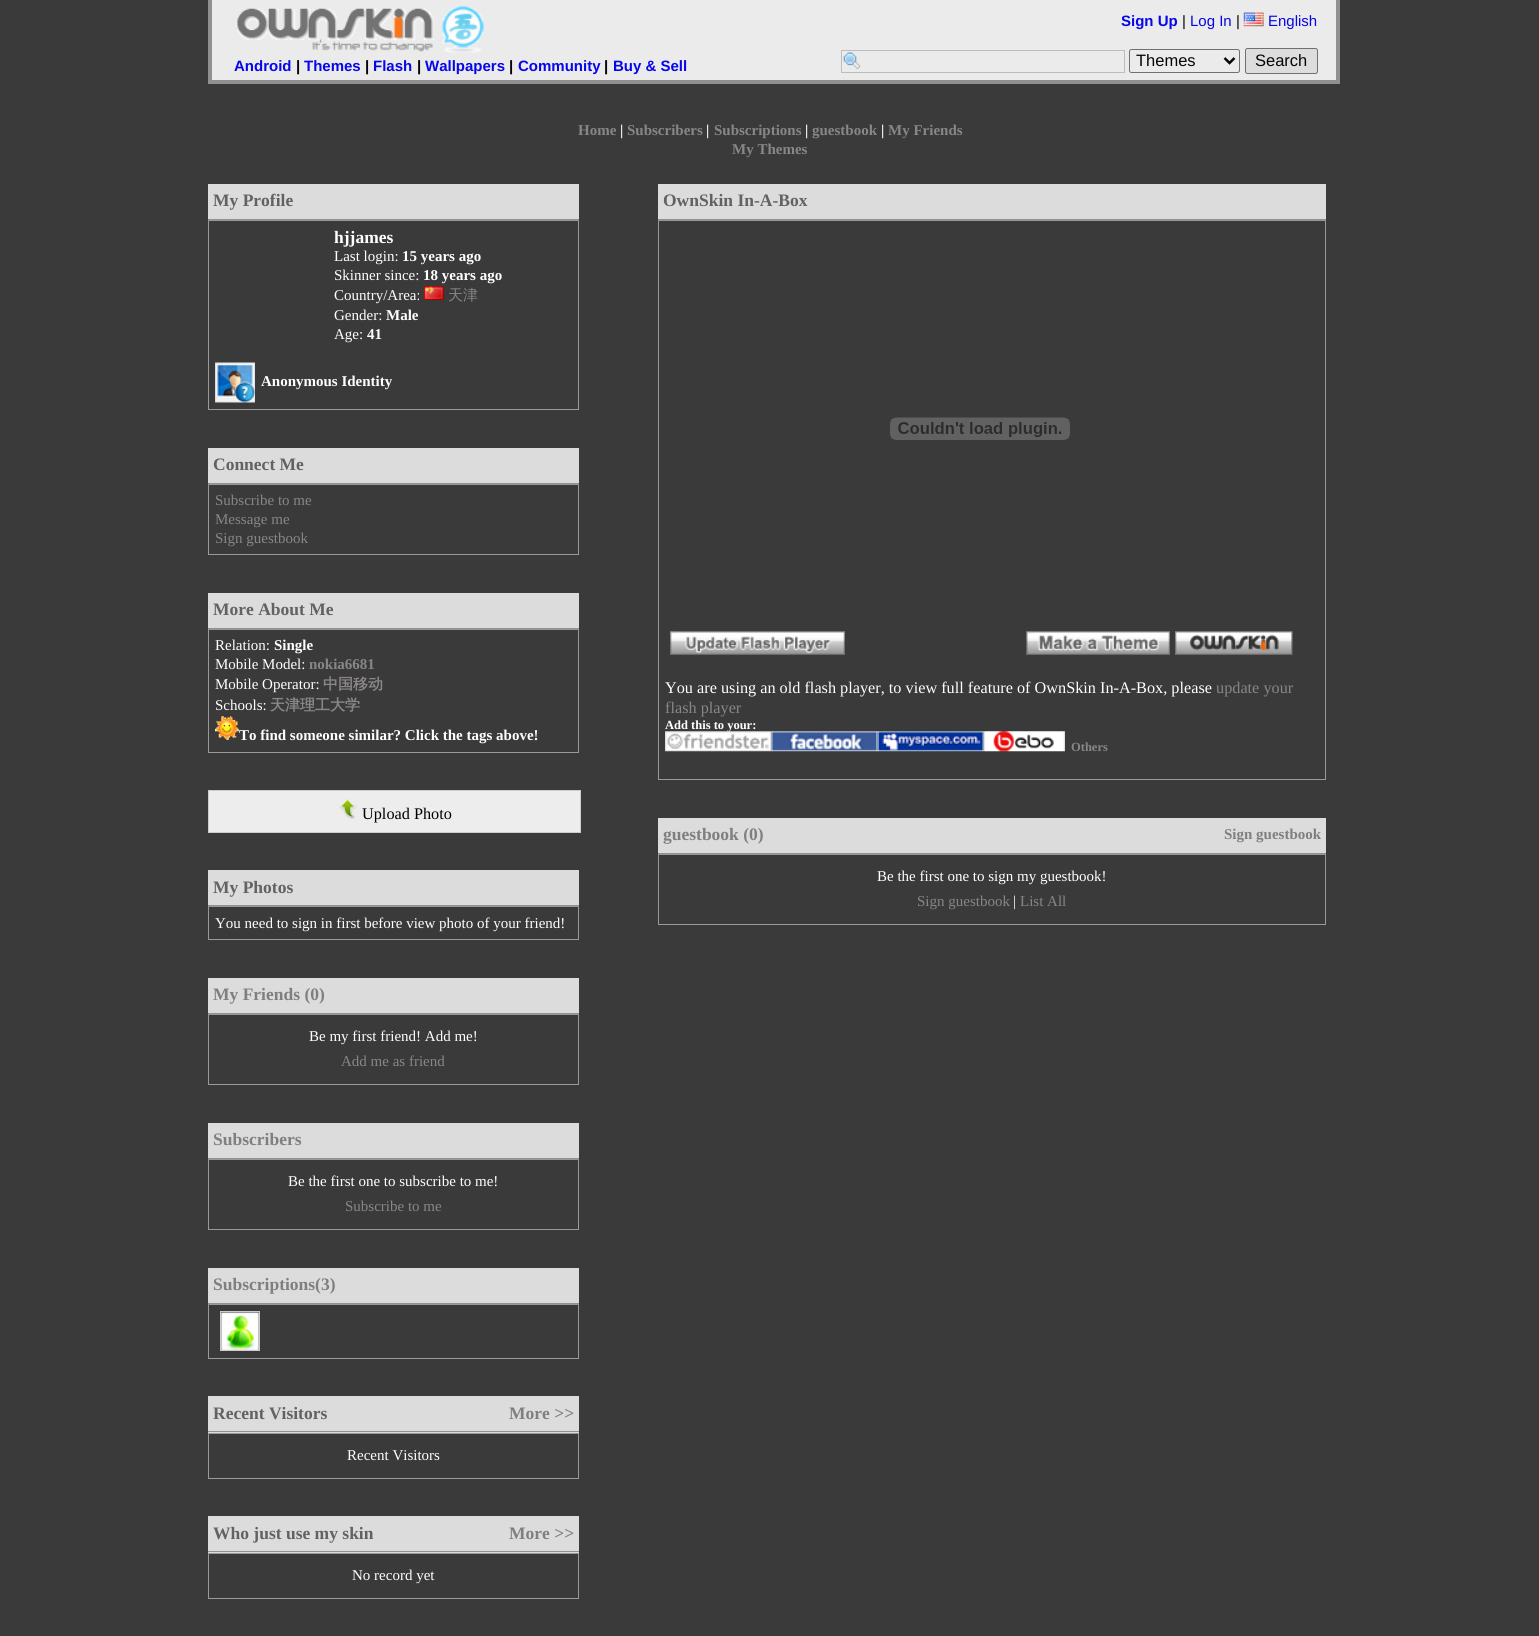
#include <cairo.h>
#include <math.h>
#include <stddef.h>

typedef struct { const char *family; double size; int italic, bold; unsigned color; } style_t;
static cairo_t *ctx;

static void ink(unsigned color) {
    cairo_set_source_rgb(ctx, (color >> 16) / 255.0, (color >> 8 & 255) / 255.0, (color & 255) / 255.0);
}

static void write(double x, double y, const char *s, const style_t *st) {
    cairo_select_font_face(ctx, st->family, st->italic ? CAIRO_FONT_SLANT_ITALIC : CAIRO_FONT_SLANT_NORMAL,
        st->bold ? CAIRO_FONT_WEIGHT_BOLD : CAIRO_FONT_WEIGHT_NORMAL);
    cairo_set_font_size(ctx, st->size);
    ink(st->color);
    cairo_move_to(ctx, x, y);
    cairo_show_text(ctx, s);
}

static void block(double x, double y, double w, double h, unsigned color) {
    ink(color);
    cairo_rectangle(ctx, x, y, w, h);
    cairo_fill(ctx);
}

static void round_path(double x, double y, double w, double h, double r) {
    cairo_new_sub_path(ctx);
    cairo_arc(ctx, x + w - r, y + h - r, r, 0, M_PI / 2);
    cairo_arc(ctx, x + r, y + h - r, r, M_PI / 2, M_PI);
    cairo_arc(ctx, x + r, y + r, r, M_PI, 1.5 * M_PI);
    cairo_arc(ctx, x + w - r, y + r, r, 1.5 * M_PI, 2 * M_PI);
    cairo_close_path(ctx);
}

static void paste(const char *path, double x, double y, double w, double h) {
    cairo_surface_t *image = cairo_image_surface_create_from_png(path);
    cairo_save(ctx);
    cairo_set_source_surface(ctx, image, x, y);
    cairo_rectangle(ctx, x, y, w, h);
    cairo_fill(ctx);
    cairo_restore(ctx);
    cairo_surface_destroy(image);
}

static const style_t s1 = {"Liberation Sans", 15, 0, 1, 0x0606eb};
static const style_t s2 = {"Liberation Sans", 15, 0, 1, 0x060606};
static const style_t s3 = {"Liberation Sans", 15, 0, 0, 0x060606};
static const style_t s4 = {"Liberation Sans", 15, 0, 0, 0x0606eb};
static const style_t s5 = {"Liberation Sans", 16.5, 0, 0, 0x060606};
static const style_t s6 = {"Liberation Serif", 15, 0, 1, 0x898588};
static const style_t s7 = {"Liberation Serif", 15, 0, 1, 0xffffff};
static const style_t s8 = {"Liberation Serif", 17.5, 0, 1, 0x626262};
static const style_t s9 = {"Liberation Serif", 17.5, 0, 1, 0xffffff};
static const style_t s10 = {"Liberation Serif", 15, 0, 0, 0xffffff};
static const style_t s11 = {"WenQuanYi Zen Hei Medium", 15, 0, 0, 0x898588};
static const style_t s12 = {"Liberation Serif", 15, 0, 0, 0x898588};
static const style_t s13 = {"WenQuanYi Zen Hei", 15, 0, 1, 0x898588};
static const style_t s14 = {"Liberation Serif", 16.25, 0, 0, 0x000000};
static const style_t s15 = {"Liberation Serif", 17.5, 0, 1, 0x817e80};
static const style_t s16 = {"Liberation Serif", 16.25, 0, 0, 0xffffff};
static const style_t s17 = {"Liberation Serif", 16.25, 0, 0, 0x898588};
static const style_t s18 = {"Liberation Serif", 12.5, 0, 1, 0xffffff};
static const style_t s19 = {"Liberation Serif", 12.5, 0, 1, 0x898588};
static const style_t s20 = {"Liberation Serif", 15, 0, 1, 0x817e80};

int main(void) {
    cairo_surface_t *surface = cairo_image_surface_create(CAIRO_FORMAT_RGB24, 1539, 1636);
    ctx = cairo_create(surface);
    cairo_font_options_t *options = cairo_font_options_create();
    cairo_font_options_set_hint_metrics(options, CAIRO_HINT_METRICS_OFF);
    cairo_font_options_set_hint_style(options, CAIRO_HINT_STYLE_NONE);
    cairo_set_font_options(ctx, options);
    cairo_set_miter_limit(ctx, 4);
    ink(0x3a3a3a);
    cairo_paint(ctx);
    block(212, 0, 1124, 80, 0xebebeb);
    block(1336, 0, 4, 84, 0x909090);
    block(208, 80, 1132, 4, 0x909090);
    block(208, 0, 4, 84, 0x909090);
    paste("pic1.png", 236, 6, 248, 47);
    write(234, 71, "Android", &s1);
    write(296, 71, "|", &s2);
    write(304, 71, "Themes", &s1);
    write(365, 71, "|", &s2);
    write(373, 71, "Flash", &s1);
    write(417, 71, "|", &s2);
    write(425, 71, "Wallpapers", &s1);
    write(509, 71, "|", &s2);
    write(518, 71, "Community", &s1);
    write(604, 71, "|", &s2);
    write(613, 71, "Buy & Sell", &s1);
    write(1121, 26, "Sign Up", &s1);
    write(1182, 26, "|", &s3);
    write(1190, 26, "Log In", &s4);
    write(1236, 26, "|", &s3);
    paste("pic2.png", 1243, 12, 21, 15);
    write(1268, 26, "English", &s4);
    paste("pic3.png", 843, 52, 18, 17);
    cairo_rectangle(ctx, 841.5, 50.5, 283, 22);
    ink(0xbdbdbd);
    cairo_set_line_width(ctx, 1);
    cairo_stroke(ctx);
    round_path(1129.5, 49.5, 110, 23, 2);
    ink(0x707070);
    cairo_stroke(ctx);
    cairo_new_path(ctx);
    cairo_move_to(ctx, 1224.5, 58);
    cairo_line_to(ctx, 1229.5, 63);
    cairo_line_to(ctx, 1234.5, 58);
    ink(0x060606);
    cairo_set_line_width(ctx, 2.5);
    cairo_stroke(ctx);
    write(1136, 66, "Themes", &s5);
    ink(0xdddddd);
    round_path(1245.5, 48.5, 72, 25, 2);
    cairo_fill_preserve(ctx);
    ink(0x707070);
    cairo_set_line_width(ctx, 1);
    cairo_stroke(ctx);
    write(1255, 66, "Search", &s5);
    write(578, 135, "Home", &s6);
    write(620, 135, "|", &s7);
    write(627, 135, "Subscribers", &s6);
    write(706, 135, "|", &s7);
    write(714, 135, "Subscriptions", &s6);
    write(805, 135, "|", &s7);
    write(812, 135, "guestbook", &s6);
    write(881, 135, "|", &s7);
    write(888, 135, "My Friends", &s6);
    write(732, 154, "My Themes", &s6);
    block(208, 184, 371, 35, 0xdcdcdc);
    block(208, 219, 371, 1, 0x909090);
    write(213, 206, "My Profile", &s8);
    cairo_rectangle(ctx, 208.5, 220.5, 370, 189);
    ink(0x999999);
    cairo_stroke(ctx);
    write(334, 243, "hjjames", &s9);
    write(334, 261, "Last login:", &s10);
    write(402, 261, "15 years ago", &s7);
    write(334, 280, "Skinner since:", &s10);
    write(423, 280, "18 years ago", &s7);
    write(334, 300, "Country/Area:", &s10);
    paste("pic4.png", 423, 286, 21, 14);
    write(448, 300, "天津", &s11);
    write(334, 320, "Gender:", &s10);
    write(386, 320, "Male", &s7);
    write(334, 339, "Age:", &s10);
    write(367, 339, "41", &s7);
    paste("pic5.png", 215, 362, 40, 41);
    write(261, 386, "Anonymous Identity", &s7);
    block(208, 448, 371, 35, 0xdcdcdc);
    block(208, 483, 371, 1, 0x909090);
    write(213, 470, "Connect Me", &s8);
    cairo_rectangle(ctx, 208.5, 484.5, 370, 70);
    ink(0x999999);
    cairo_stroke(ctx);
    write(215, 505, "Subscribe to me", &s12);
    write(215, 524, "Message me", &s12);
    write(215, 543, "Sign guestbook", &s12);
    block(208, 593, 371, 35, 0xdcdcdc);
    block(208, 628, 371, 1, 0x909090);
    write(213, 615, "More About Me", &s8);
    cairo_rectangle(ctx, 208.5, 629.5, 370, 123);
    ink(0x999999);
    cairo_stroke(ctx);
    write(215, 650, "Relation:", &s10);
    write(274, 650, "Single", &s7);
    write(215, 669, "Mobile Model:", &s10);
    write(309, 669, "nokia6681", &s6);
    write(215, 689, "Mobile Operator:", &s10);
    write(323, 689, "中国移动", &s13);
    write(215, 710, "Schools:", &s10);
    write(270, 710, "天津理工大学", &s13);
    paste("pic6.png", 215, 716, 24, 24);
    write(239, 740, "To find someone similar? Click the tags above!", &s7);
    ink(0xededed);
    cairo_rectangle(ctx, 208.5, 790.5, 372, 42);
    cairo_fill_preserve(ctx);
    ink(0xcccccc);
    cairo_stroke(ctx);
    paste("pic7.png", 339, 799, 18, 20);
    write(362, 819, "Upload Photo", &s14);
    block(208, 870, 371, 35, 0xdcdcdc);
    block(208, 905, 371, 1, 0x909090);
    write(213, 893, "My Photos", &s8);
    cairo_rectangle(ctx, 208.5, 906.5, 370, 33);
    ink(0x999999);
    cairo_stroke(ctx);
    write(215, 928, "You need to sign in first before view photo of your friend!", &s10);
    block(208, 978, 371, 35, 0xdcdcdc);
    block(208, 1013, 371, 1, 0x909090);
    write(213, 1000, "My Friends (0)", &s15);
    cairo_rectangle(ctx, 208.5, 1014.5, 370, 70);
    ink(0x999999);
    cairo_stroke(ctx);
    write(309, 1041, "Be my first friend! Add me!", &s10);
    write(341, 1066, "Add me as friend", &s12);
    block(208, 1123, 371, 35, 0xdcdcdc);
    block(208, 1158, 371, 1, 0x909090);
    write(213, 1145, "Subscribers", &s15);
    cairo_rectangle(ctx, 208.5, 1159.5, 370, 70);
    ink(0x999999);
    cairo_stroke(ctx);
    write(288, 1186, "Be the first one to subscribe to me!", &s10);
    write(345, 1211, "Subscribe to me", &s12);
    block(208, 1268, 371, 35, 0xdcdcdc);
    block(208, 1303, 371, 1, 0x909090);
    write(213, 1290, "Subscriptions(3)", &s15);
    cairo_rectangle(ctx, 208.5, 1304.5, 370, 54);
    ink(0x999999);
    cairo_stroke(ctx);
    cairo_rectangle(ctx, 220.5, 1311.5, 39, 39);
    ink(0xcccccc);
    cairo_stroke(ctx);
    paste("pic8.png", 221, 1312, 38, 38);
    block(208, 1396, 371, 37, 0xdcdcdc);
    block(208, 1431, 371, 1, 0x909090);
    write(213, 1419, "Recent Visitors", &s8);
    write(509, 1419, "More >>", &s15);
    cairo_rectangle(ctx, 208.5, 1433.5, 370, 45);
    ink(0x999999);
    cairo_stroke(ctx);
    write(347, 1460, "Recent Visitors", &s10);
    block(208, 1516, 371, 37, 0xdcdcdc);
    block(208, 1551, 371, 1, 0x909090);
    write(213, 1539, "Who just use my skin", &s8);
    write(509, 1539, "More >>", &s15);
    cairo_rectangle(ctx, 208.5, 1553.5, 370, 45);
    ink(0x999999);
    cairo_stroke(ctx);
    write(352, 1580, "No record yet", &s10);
    block(658, 184, 668, 35, 0xdcdcdc);
    block(658, 219, 668, 1, 0x909090);
    write(663, 206, "OwnSkin In-A-Box", &s8);
    cairo_rectangle(ctx, 658.5, 220.5, 667, 559);
    ink(0x999999);
    cairo_stroke(ctx);
    paste("pic9.png", 890, 417, 180, 23);
    paste("pic10.png", 670, 631, 175, 24);
    paste("pic11.png", 1026, 631, 144, 24);
    paste("pic12.png", 1175, 631, 118, 24);
    write(665, 693, "You are using an old flash player, to view full feature of OwnSkin In-A-Box, please", &s16);
    write(1216, 693, "update your", &s17);
    write(665, 713, "flash player", &s17);
    write(665, 729, "Add this to your:", &s18);
    paste("pic13.png", 665, 731, 107, 21);
    paste("pic14.png", 771, 731, 107, 21);
    paste("pic15.png", 877, 731, 107, 21);
    paste("pic16.png", 983, 731, 82, 21);
    write(1071, 751, "Others", &s19);
    block(658, 818, 668, 35, 0xdcdcdc);
    block(658, 853, 668, 1, 0x909090);
    write(663, 840, "guestbook (0)", &s15);
    write(1224, 839, "Sign guestbook", &s20);
    cairo_rectangle(ctx, 658.5, 854.5, 667, 70);
    ink(0x999999);
    cairo_stroke(ctx);
    write(877, 881, "Be the first one to sign my guestbook!", &s10);
    write(917, 906, "Sign guestbook", &s12);
    write(1013, 906, "|", &s10);
    write(1020, 906, "List All", &s12);
    cairo_surface_write_to_png(surface, "screenshot.png");
    cairo_font_options_destroy(options);
    cairo_destroy(ctx);
    cairo_surface_destroy(surface);
    return 0;
}
